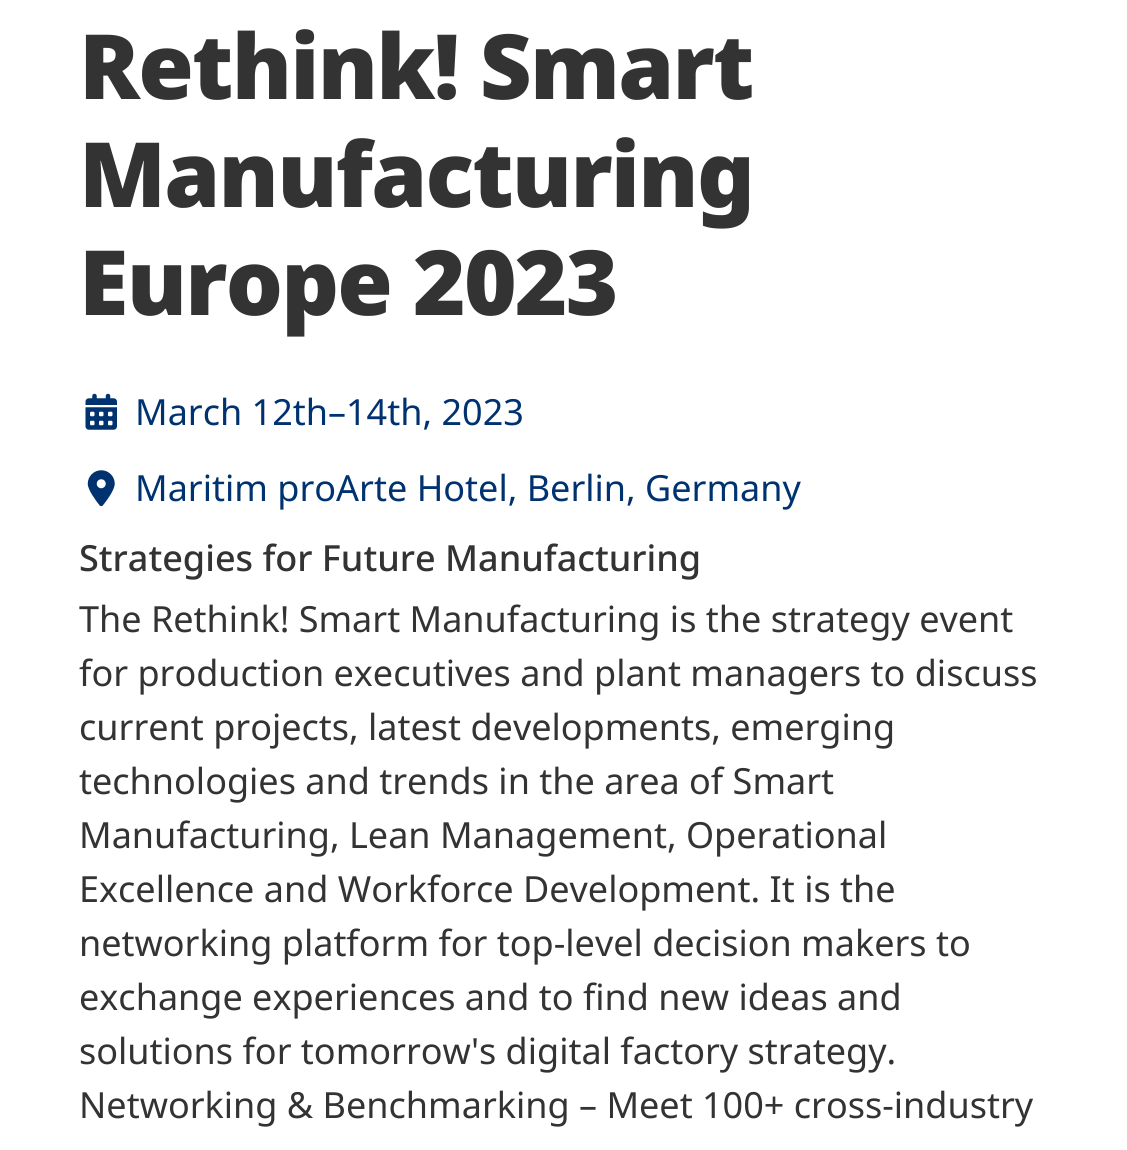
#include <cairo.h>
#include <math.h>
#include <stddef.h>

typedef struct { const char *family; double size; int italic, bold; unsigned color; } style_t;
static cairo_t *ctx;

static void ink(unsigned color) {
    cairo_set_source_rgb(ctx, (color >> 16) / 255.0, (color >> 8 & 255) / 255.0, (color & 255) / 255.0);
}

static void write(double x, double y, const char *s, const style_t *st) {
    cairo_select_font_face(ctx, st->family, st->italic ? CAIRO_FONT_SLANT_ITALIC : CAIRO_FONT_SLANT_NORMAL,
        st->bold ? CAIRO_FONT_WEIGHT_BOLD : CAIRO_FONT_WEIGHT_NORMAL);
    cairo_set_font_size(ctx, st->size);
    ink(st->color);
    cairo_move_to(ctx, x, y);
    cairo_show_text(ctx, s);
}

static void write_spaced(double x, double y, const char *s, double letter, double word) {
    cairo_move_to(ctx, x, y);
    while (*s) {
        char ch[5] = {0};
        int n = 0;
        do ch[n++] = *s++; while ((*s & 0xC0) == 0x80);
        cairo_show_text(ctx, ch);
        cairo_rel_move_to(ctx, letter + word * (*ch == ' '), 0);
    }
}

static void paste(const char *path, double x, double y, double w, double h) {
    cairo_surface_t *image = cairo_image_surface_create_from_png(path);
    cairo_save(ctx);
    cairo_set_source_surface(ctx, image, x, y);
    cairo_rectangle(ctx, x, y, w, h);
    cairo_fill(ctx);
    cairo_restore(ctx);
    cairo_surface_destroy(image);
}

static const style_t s1 = {"Noto Sans", 36, 0, 0, 0x003270};
static const style_t s2 = {"Noto Sans Medium", 36, 0, 0, 0x333333};
static const style_t s3 = {"Noto Sans", 36, 0, 0, 0x333333};

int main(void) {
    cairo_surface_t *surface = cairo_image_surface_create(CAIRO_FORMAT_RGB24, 1127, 1150);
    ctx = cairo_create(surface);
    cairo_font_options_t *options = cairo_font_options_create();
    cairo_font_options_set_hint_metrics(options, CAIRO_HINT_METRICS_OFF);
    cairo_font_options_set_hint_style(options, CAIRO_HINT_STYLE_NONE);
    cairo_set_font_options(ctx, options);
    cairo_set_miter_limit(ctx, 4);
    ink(0xffffff);
    cairo_paint(ctx);
    cairo_select_font_face(ctx, "Noto Sans Black", CAIRO_FONT_SLANT_NORMAL, CAIRO_FONT_WEIGHT_NORMAL);
    cairo_set_font_size(ctx, 90);
    ink(0x333333);
    write_spaced(79, 99, "Rethink! Smart", -1.75, 0);
    write_spaced(79, 207, "Manufacturing", -1.75, 0);
    write_spaced(79, 315, "Europe 2023", -1.75, 0);
    paste("pic1.png", 85, 393, 32, 37);
    write(135, 425, "March 12th–14th, 2023", &s1);
    paste("pic2.png", 87, 470, 28, 37);
    write(135, 501, "Maritim proArte Hotel, Berlin, Germany", &s1);
    write(79, 571, "Strategies for Future Manufacturing", &s2);
    write(79, 632, "The Rethink! Smart Manufacturing is the strategy event", &s3);
    write(79, 686, "for production executives and plant managers to discuss", &s3);
    write(79, 740, "current projects, latest developments, emerging", &s3);
    write(79, 794, "technologies and trends in the area of Smart", &s3);
    write(79, 848, "Manufacturing, Lean Management, Operational", &s3);
    write(79, 902, "Excellence and Workforce Development. It is the", &s3);
    write(79, 956, "networking platform for top-level decision makers to", &s3);
    write(79, 1010, "exchange experiences and to find new ideas and", &s3);
    write(79, 1064, "solutions for tomorrow's digital factory strategy.", &s3);
    write(79, 1118, "Networking & Benchmarking – Meet 100+ cross-industry", &s3);
    cairo_surface_write_to_png(surface, "screenshot.png");
    cairo_font_options_destroy(options);
    cairo_destroy(ctx);
    cairo_surface_destroy(surface);
    return 0;
}
